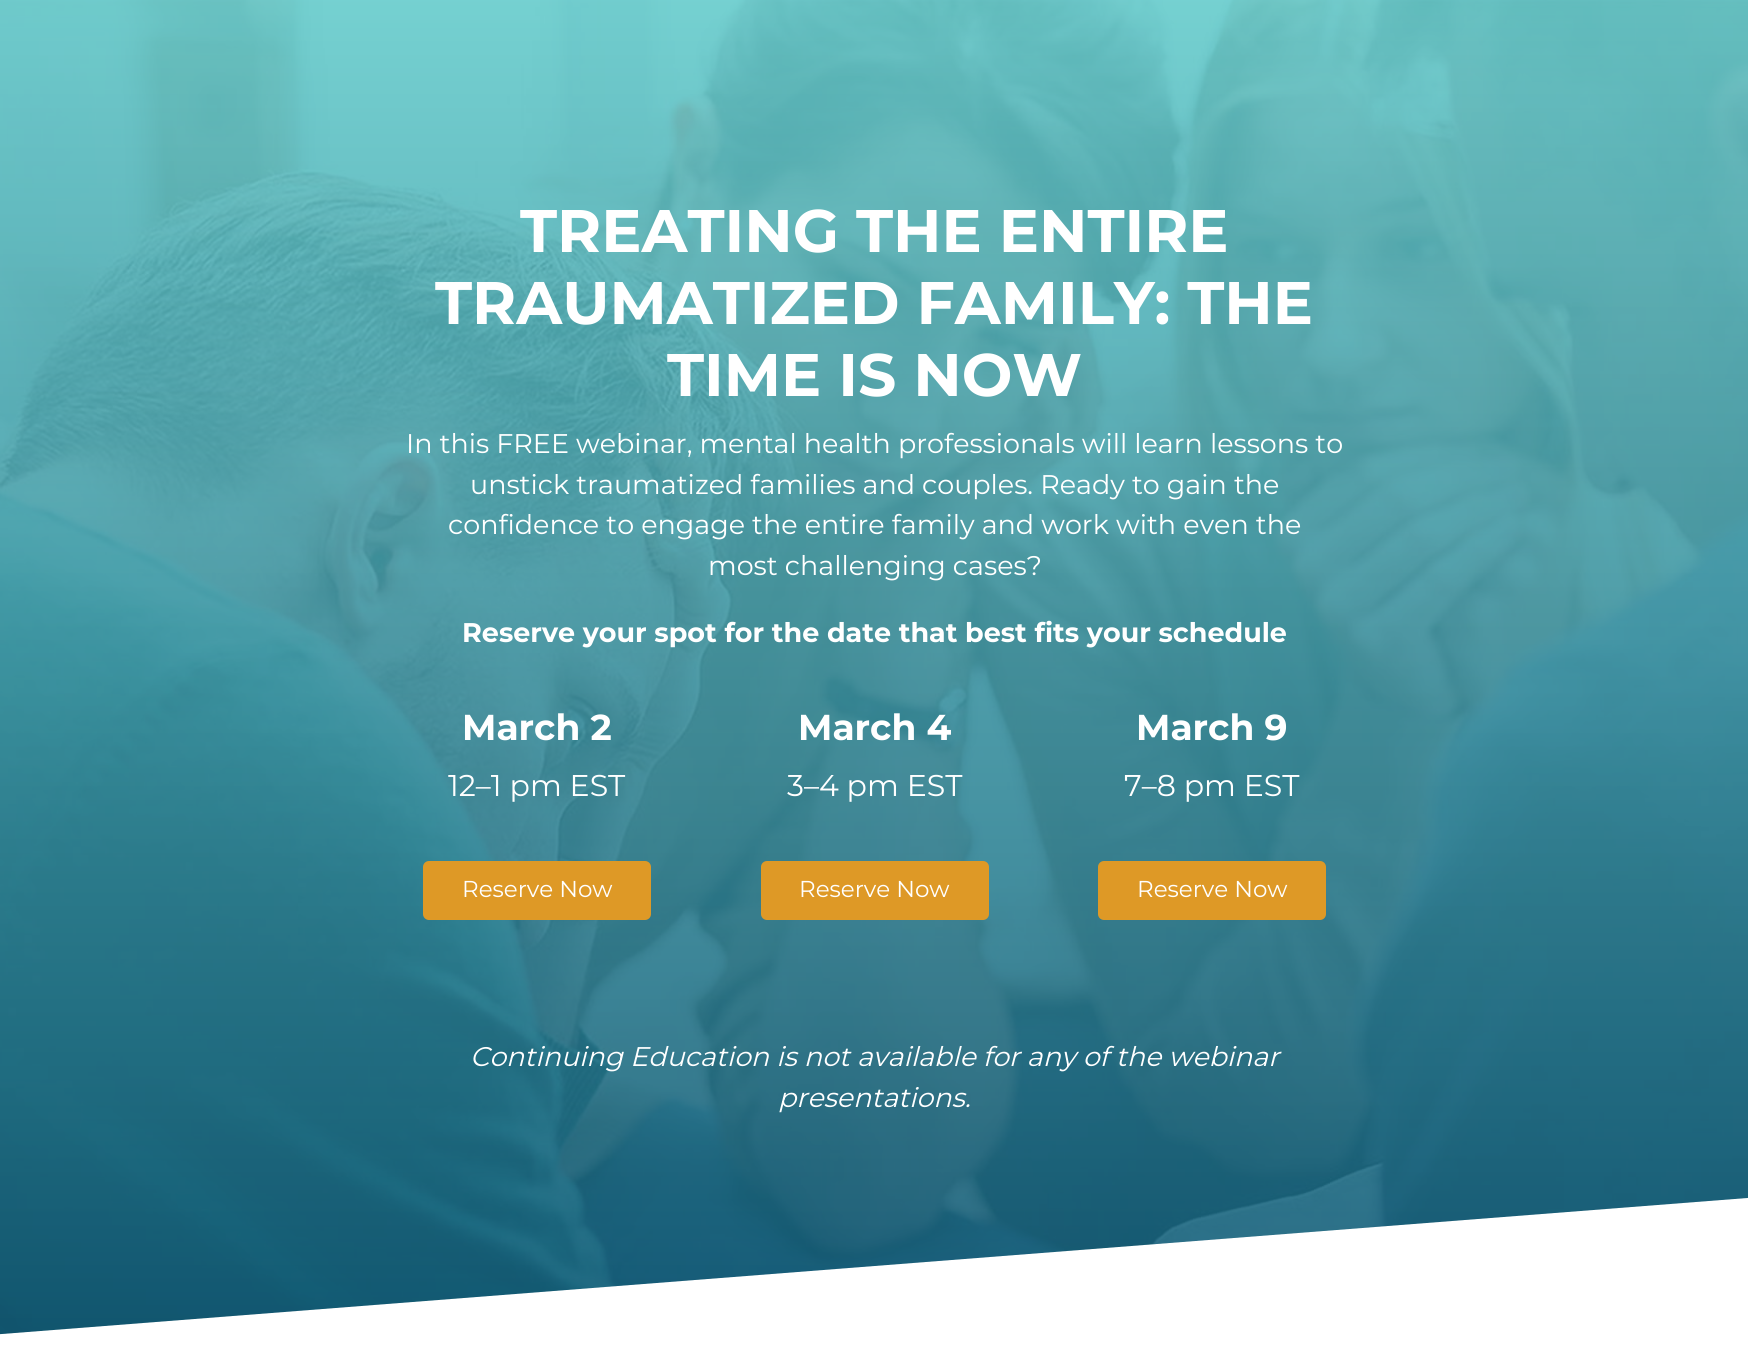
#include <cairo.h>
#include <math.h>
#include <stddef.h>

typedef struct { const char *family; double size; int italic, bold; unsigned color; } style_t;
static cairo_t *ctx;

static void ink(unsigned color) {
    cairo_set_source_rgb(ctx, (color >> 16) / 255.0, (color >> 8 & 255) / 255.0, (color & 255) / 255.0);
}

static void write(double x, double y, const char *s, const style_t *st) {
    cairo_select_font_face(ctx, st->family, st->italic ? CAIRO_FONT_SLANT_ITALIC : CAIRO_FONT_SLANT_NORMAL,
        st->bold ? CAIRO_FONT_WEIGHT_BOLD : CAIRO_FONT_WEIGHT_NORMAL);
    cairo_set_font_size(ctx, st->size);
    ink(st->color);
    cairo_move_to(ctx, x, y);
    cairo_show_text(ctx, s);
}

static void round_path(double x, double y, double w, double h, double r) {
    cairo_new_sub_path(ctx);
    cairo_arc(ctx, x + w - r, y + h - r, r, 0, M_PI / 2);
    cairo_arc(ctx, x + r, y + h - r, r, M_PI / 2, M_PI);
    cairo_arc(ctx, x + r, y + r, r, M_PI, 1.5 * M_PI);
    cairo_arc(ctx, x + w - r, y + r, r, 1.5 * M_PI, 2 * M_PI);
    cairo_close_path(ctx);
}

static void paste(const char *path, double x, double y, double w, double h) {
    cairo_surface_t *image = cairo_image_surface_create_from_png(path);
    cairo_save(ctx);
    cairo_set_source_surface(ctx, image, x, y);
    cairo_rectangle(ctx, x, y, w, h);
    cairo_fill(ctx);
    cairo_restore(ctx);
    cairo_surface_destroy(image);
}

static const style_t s1 = {"Montserrat", 60, 0, 1, 0xffffff};
static const style_t s2 = {"Montserrat", 27, 0, 0, 0xffffff};
static const style_t s3 = {"Montserrat", 27, 0, 1, 0xffffff};
static const style_t s4 = {"Montserrat", 36, 0, 1, 0xffffff};
static const style_t s5 = {"Montserrat", 30, 0, 0, 0xffffff};
static const style_t s6 = {"Montserrat", 23, 0, 0, 0xffffff};
static const style_t s7 = {"Montserrat", 27, 1, 0, 0xffffff};

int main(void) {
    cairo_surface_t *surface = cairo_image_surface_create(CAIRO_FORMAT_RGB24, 1748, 1354);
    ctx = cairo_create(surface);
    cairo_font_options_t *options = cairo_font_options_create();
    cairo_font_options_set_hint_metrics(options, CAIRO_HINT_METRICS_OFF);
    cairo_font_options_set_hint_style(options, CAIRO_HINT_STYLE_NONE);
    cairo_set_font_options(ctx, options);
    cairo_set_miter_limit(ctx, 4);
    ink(0xffffff);
    cairo_paint(ctx);
    paste("pic1.png", 0, 0, 1748, 1335);
    write(520, 252, "TREATING THE ENTIRE", &s1);
    write(435, 324, "TRAUMATIZED FAMILY: THE", &s1);
    write(667, 396, "TIME IS NOW", &s1);
    write(406, 453, "In this FREE webinar, mental health professionals will learn lessons to", &s2);
    write(470, 494, "unstick traumatized families and couples. Ready to gain the", &s2);
    write(448, 534, "confidence to engage the entire family and work with even the", &s2);
    write(708, 575, "most challenging cases?", &s2);
    write(462, 642, "Reserve your spot for the date that best fits your schedule", &s3);
    write(462, 740, "March 2", &s4);
    write(448, 796, "12–1 pm EST", &s5);
    ink(0xde9926);
    round_path(423, 861, 228, 59, 6);
    cairo_fill(ctx);
    write(462, 897, "Reserve Now", &s6);
    write(798, 740, "March 4", &s4);
    write(787, 796, "3–4 pm EST", &s5);
    ink(0xde9926);
    round_path(761, 861, 228, 59, 6);
    cairo_fill(ctx);
    write(799, 897, "Reserve Now", &s6);
    write(1136, 740, "March 9", &s4);
    write(1124, 796, "7–8 pm EST", &s5);
    ink(0xde9926);
    round_path(1098, 861, 228, 59, 6);
    cairo_fill(ctx);
    write(1137, 897, "Reserve Now", &s6);
    write(470, 1066, "Continuing Education is not available for any of the webinar", &s7);
    write(778, 1107, "presentations.", &s7);
    cairo_save(ctx);
    cairo_rectangle(ctx, 0, 1197, 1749, 150);
    cairo_clip(ctx);
    cairo_new_path(ctx);
    cairo_move_to(ctx, -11, 1354);
    cairo_line_to(ctx, 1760, 1354);
    cairo_line_to(ctx, 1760, 1197);
    cairo_line_to(ctx, -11, 1335);
    cairo_close_path(ctx);
    cairo_fill(ctx);
    cairo_restore(ctx);
    cairo_surface_write_to_png(surface, "screenshot.png");
    cairo_font_options_destroy(options);
    cairo_destroy(ctx);
    cairo_surface_destroy(surface);
    return 0;
}
